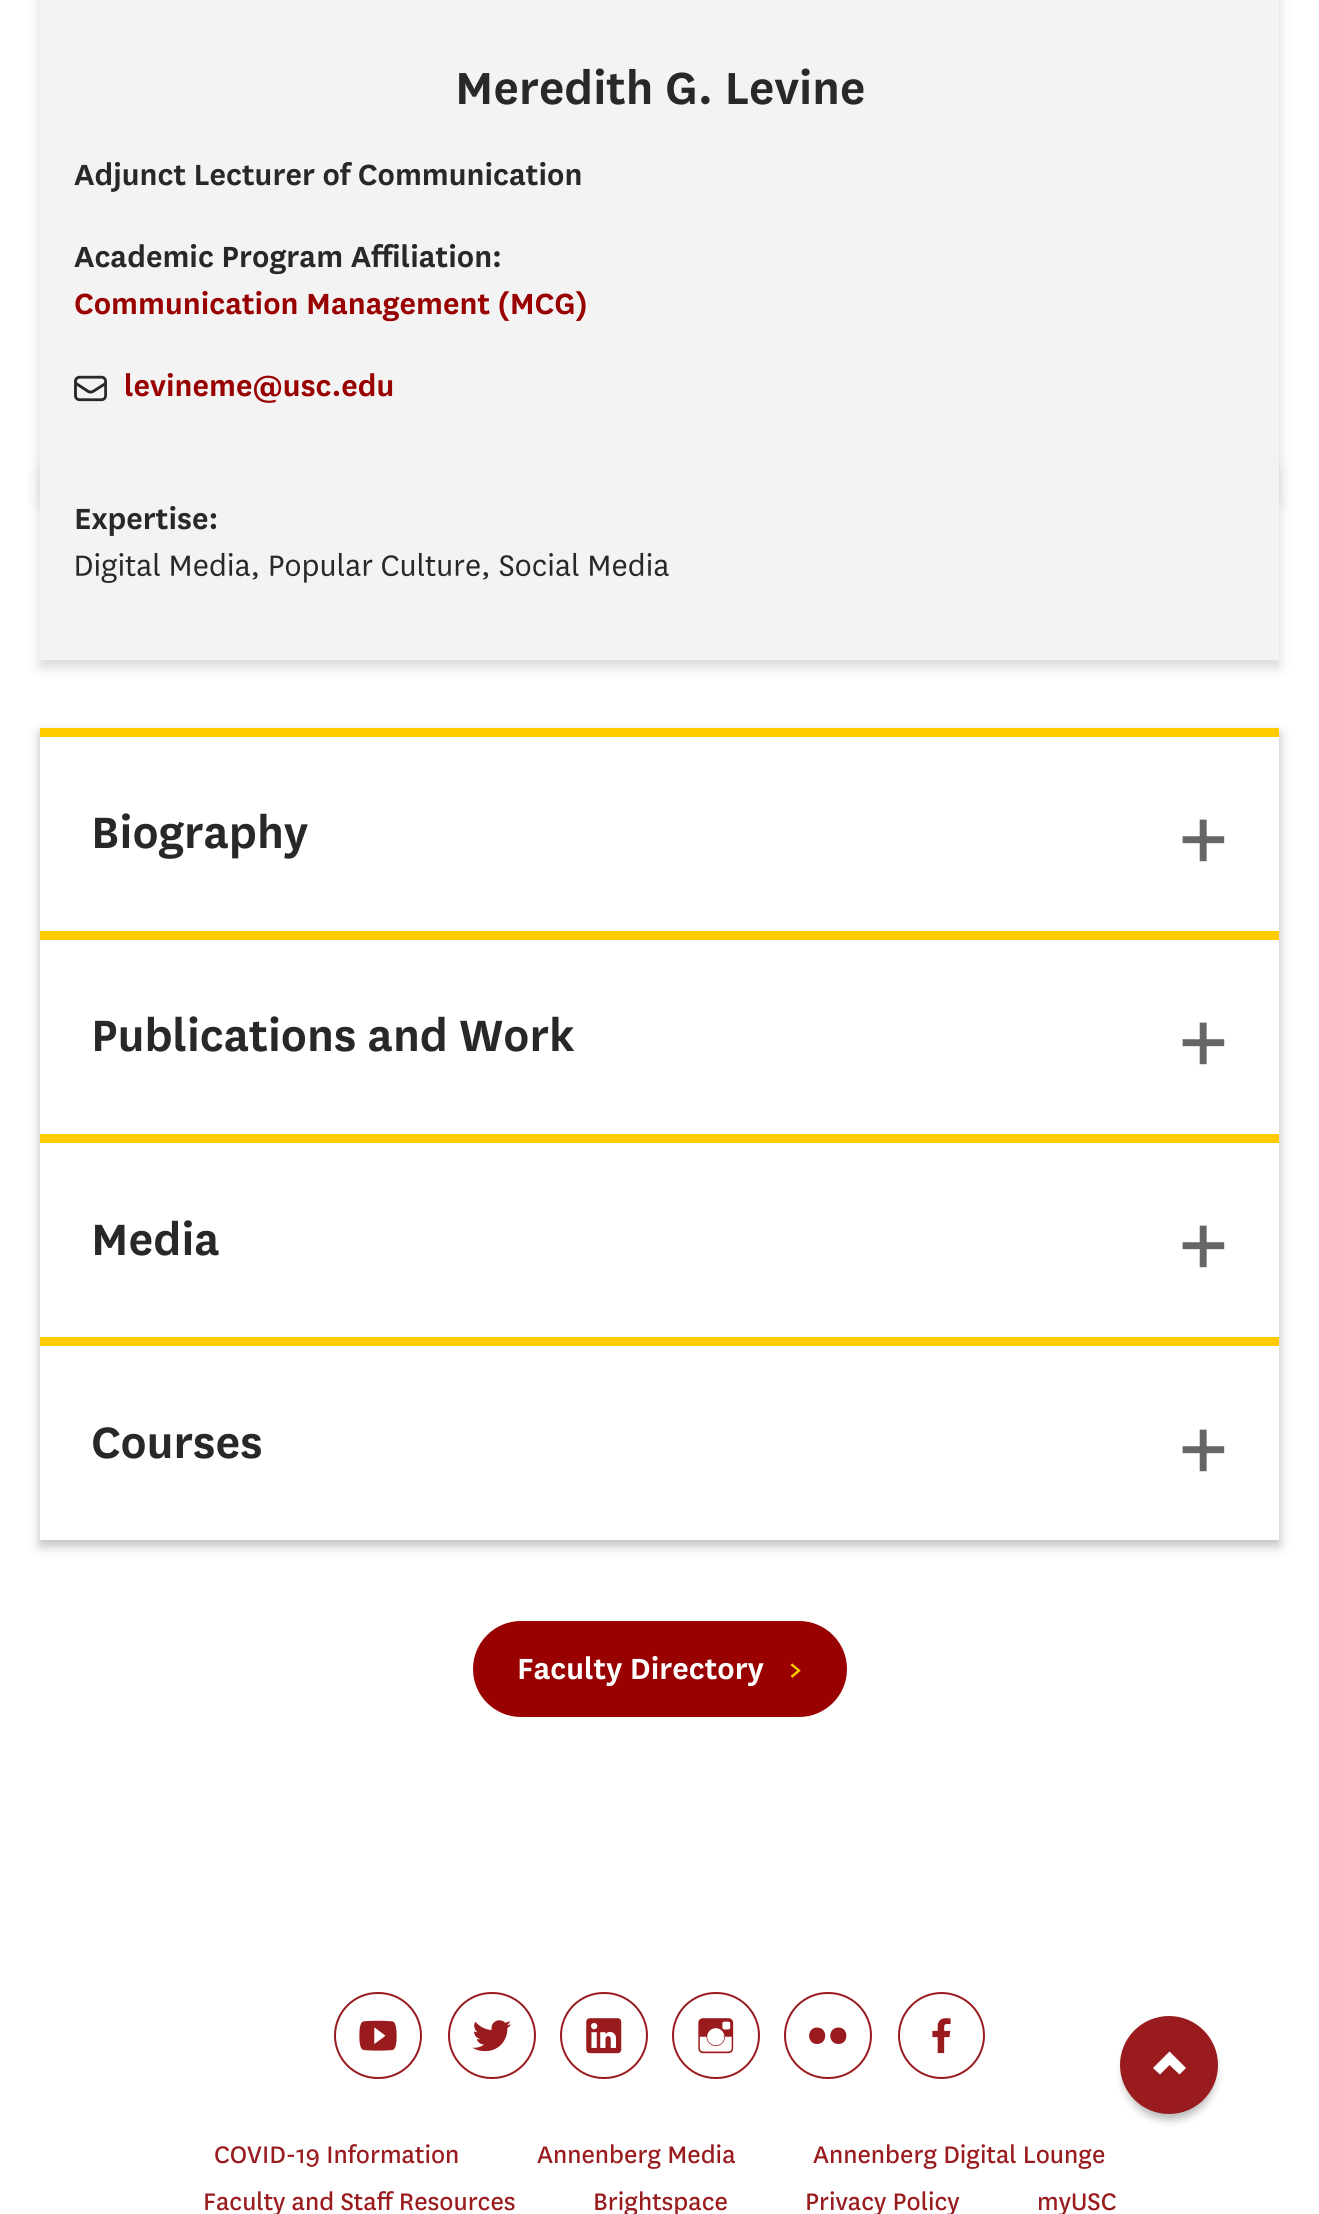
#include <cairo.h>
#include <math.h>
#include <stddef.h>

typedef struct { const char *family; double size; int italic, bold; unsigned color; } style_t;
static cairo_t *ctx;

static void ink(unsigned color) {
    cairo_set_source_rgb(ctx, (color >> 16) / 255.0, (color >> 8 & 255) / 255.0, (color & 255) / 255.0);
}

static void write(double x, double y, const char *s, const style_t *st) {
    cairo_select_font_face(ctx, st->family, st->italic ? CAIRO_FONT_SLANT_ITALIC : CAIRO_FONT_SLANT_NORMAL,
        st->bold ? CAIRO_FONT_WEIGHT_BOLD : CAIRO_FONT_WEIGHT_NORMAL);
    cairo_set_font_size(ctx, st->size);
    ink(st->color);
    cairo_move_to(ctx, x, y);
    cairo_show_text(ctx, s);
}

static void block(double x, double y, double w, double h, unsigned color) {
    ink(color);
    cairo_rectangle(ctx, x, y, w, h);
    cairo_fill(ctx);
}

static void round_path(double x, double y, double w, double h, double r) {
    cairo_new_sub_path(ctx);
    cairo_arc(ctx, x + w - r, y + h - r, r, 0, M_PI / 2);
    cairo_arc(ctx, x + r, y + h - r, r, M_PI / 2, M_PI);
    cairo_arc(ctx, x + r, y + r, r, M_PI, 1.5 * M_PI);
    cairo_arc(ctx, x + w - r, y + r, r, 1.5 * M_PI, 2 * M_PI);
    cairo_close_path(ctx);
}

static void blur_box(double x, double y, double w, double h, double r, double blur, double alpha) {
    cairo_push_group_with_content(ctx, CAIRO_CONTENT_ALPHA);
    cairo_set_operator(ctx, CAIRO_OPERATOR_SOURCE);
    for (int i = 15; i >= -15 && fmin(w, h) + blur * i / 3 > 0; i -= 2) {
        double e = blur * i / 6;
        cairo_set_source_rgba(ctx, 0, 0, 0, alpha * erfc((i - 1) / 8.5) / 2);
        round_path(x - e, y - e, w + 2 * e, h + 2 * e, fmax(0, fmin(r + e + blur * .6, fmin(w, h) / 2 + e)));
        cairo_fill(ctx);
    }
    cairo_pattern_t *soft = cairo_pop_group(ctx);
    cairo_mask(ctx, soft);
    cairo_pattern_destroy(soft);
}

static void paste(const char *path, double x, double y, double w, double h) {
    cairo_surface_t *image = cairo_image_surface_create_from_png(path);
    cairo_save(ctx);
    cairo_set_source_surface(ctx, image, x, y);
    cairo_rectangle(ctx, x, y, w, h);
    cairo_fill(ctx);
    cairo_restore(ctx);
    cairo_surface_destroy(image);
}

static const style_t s1 = {"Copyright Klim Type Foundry", 52.5, 0, 1, 0x282828};
static const style_t s2 = {"Copyright Klim Type Foundry", 34.1, 0, 1, 0x282828};
static const style_t s3 = {"Copyright Klim Type Foundry", 34.1, 0, 1, 0x990000};
static const style_t s4 = {"Copyright Klim Type Foundry", 51.25, 0, 1, 0x282828};
static const style_t s5 = {"Copyright Klim Type Foundry", 102, 0, 1, 0x666666};
static const style_t s6 = {"Copyright Klim Type Foundry", 34.1, 0, 1, 0xffffff};
static const style_t s7 = {"Copyright Klim Type Foundry", 34.1, 0, 1, 0xffcc00};
static const style_t s8 = {"Copyright Klim Type Foundry Medium", 28, 0, 0, 0x991b1e};

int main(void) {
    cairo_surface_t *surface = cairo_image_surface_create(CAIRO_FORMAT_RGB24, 1319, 2214);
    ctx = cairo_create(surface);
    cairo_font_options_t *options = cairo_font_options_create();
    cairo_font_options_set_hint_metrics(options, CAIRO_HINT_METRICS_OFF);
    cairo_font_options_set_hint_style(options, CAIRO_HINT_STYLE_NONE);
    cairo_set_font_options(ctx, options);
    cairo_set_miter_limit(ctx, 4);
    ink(0xffffff);
    cairo_paint(ctx);
    ink(0xd8d8dc);
    blur_box(40, -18, 1239, 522, 0, 6, 1);
    block(40, 0, 1239, 462, 0xf3f3f4);
    write(455, 104, "Meredith G. Levine", &s1);
    write(74, 185, "Adjunct Lecturer of Communication", &s2);
    write(74, 267, "Academic Program Affiliation:", &s2);
    write(74, 314, "Communication Management (MCG)", &s3);
    paste("pic1.png", 74, 375, 33, 27);
    write(124, 396, "levineme@usc.edu", &s3);
    ink(0xd8d8dc);
    blur_box(40, 469, 1239, 198, 0, 6, 1);
    block(40, 462, 1239, 198, 0xf3f3f4);
    write(74, 529, "Expertise:", &s2);
    paste("pic2.png", 76, 552, 182, 31);
    paste("pic3.png", 270, 552, 218, 31);
    paste("pic4.png", 499, 552, 170, 25);
    cairo_save(ctx);
    cairo_set_fill_rule(ctx, CAIRO_FILL_RULE_EVEN_ODD);
    cairo_new_path(ctx);
    cairo_move_to(ctx, 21, 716);
    cairo_line_to(ctx, 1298, 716);
    cairo_line_to(ctx, 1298, 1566);
    cairo_line_to(ctx, 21, 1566);
    cairo_close_path(ctx);
    cairo_move_to(ctx, 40, 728);
    cairo_line_to(ctx, 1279, 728);
    cairo_line_to(ctx, 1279, 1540);
    cairo_line_to(ctx, 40, 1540);
    cairo_close_path(ctx);
    cairo_clip(ctx);
    ink(0xd8d8dc);
    blur_box(40, 735, 1239, 812, 0, 6, 1);
    cairo_restore(ctx);
    cairo_save(ctx);
    cairo_set_fill_rule(ctx, CAIRO_FILL_RULE_EVEN_ODD);
    cairo_new_path(ctx);
    cairo_move_to(ctx, 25, 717);
    cairo_line_to(ctx, 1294, 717);
    cairo_line_to(ctx, 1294, 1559);
    cairo_line_to(ctx, 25, 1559);
    cairo_close_path(ctx);
    cairo_move_to(ctx, 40, 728);
    cairo_line_to(ctx, 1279, 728);
    cairo_line_to(ctx, 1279, 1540);
    cairo_line_to(ctx, 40, 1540);
    cairo_close_path(ctx);
    cairo_clip(ctx);
    ink(0x989898);
    blur_box(40, 732, 1239, 812, 0, 4.5, 0.37);
    cairo_restore(ctx);
    block(40, 728, 1239, 9, 0xffcc00);
    write(91, 848, "Biography", &s4);
    write(1178, 865, "+", &s5);
    block(40, 931, 1239, 9, 0xffcc00);
    write(91, 1051, "Publications and Work", &s4);
    write(1178, 1068, "+", &s5);
    block(40, 1134, 1239, 9, 0xffcc00);
    write(91, 1255, "Media", &s4);
    write(1178, 1271, "+", &s5);
    block(40, 1337, 1239, 9, 0xffcc00);
    write(91, 1458, "Courses", &s4);
    write(1178, 1475, "+", &s5);
    ink(0x990000);
    round_path(474, 1622, 372, 94, 47);
    cairo_fill_preserve(ctx);
    cairo_stroke(ctx);
    write(517, 1679, "Faculty Directory", &s6);
    write(789, 1679, ">", &s7);
    paste("pic5.png", 359, 2020, 38, 31);
    round_path(335, 1993, 86, 85, 42.5);
    ink(0x991b1e);
    cairo_stroke(ctx);
    paste("pic6.png", 472, 2020, 40, 32);
    round_path(449, 1993, 86, 85, 42.5);
    cairo_stroke(ctx);
    paste("pic7.png", 586, 2018, 36, 36);
    round_path(561, 1993, 86, 85, 42.5);
    cairo_stroke(ctx);
    paste("pic8.png", 698, 2018, 36, 36);
    round_path(673, 1993, 86, 85, 42.5);
    cairo_stroke(ctx);
    cairo_new_path(ctx);
    cairo_move_to(ctx, 817, 2027.5);
    cairo_curve_to(ctx, 828, 2027.5, 828, 2044, 817, 2044);
    cairo_curve_to(ctx, 806.5, 2044, 806.5, 2027.5, 817, 2027.5);
    cairo_close_path(ctx);
    cairo_move_to(ctx, 838.5, 2027.5);
    cairo_curve_to(ctx, 849, 2027.5, 849, 2044, 838.5, 2044);
    cairo_curve_to(ctx, 827.5, 2044, 827.5, 2027.5, 838.5, 2027.5);
    cairo_close_path(ctx);
    cairo_fill(ctx);
    round_path(785, 1993, 86, 85, 42.5);
    cairo_stroke(ctx);
    paste("pic9.png", 932, 2018, 19, 36);
    cairo_arc(ctx, 941.5, 2035.5, 42.5, 0, 2 * M_PI);
    cairo_stroke(ctx);
    write(214, 2163, "COVID-19 Information", &s8);
    write(537, 2163, "Annenberg Media", &s8);
    write(813, 2163, "Annenberg Digital Lounge", &s8);
    write(203, 2210, "Faculty and Staff Resources", &s8);
    write(593, 2210, "Brightspace", &s8);
    write(805, 2210, "Privacy Policy", &s8);
    write(1037, 2210, "myUSC", &s8);
    ink(0x000000);
    blur_box(1124, 2028, 91, 91, 45.5, 4.5, 0.3);
    ink(0x991b1e);
    cairo_arc(ctx, 1169, 2065, 49, 0, 2 * M_PI);
    cairo_fill(ctx);
    ink(0xffffff);
    cairo_new_path(ctx);
    cairo_move_to(ctx, 1169.5, 2051.5);
    cairo_line_to(ctx, 1153, 2068);
    cairo_line_to(ctx, 1160, 2074.5);
    cairo_line_to(ctx, 1169.5, 2065);
    cairo_line_to(ctx, 1179.5, 2074.5);
    cairo_line_to(ctx, 1186, 2068);
    cairo_close_path(ctx);
    cairo_fill(ctx);
    cairo_surface_write_to_png(surface, "screenshot.png");
    cairo_font_options_destroy(options);
    cairo_destroy(ctx);
    cairo_surface_destroy(surface);
    return 0;
}
